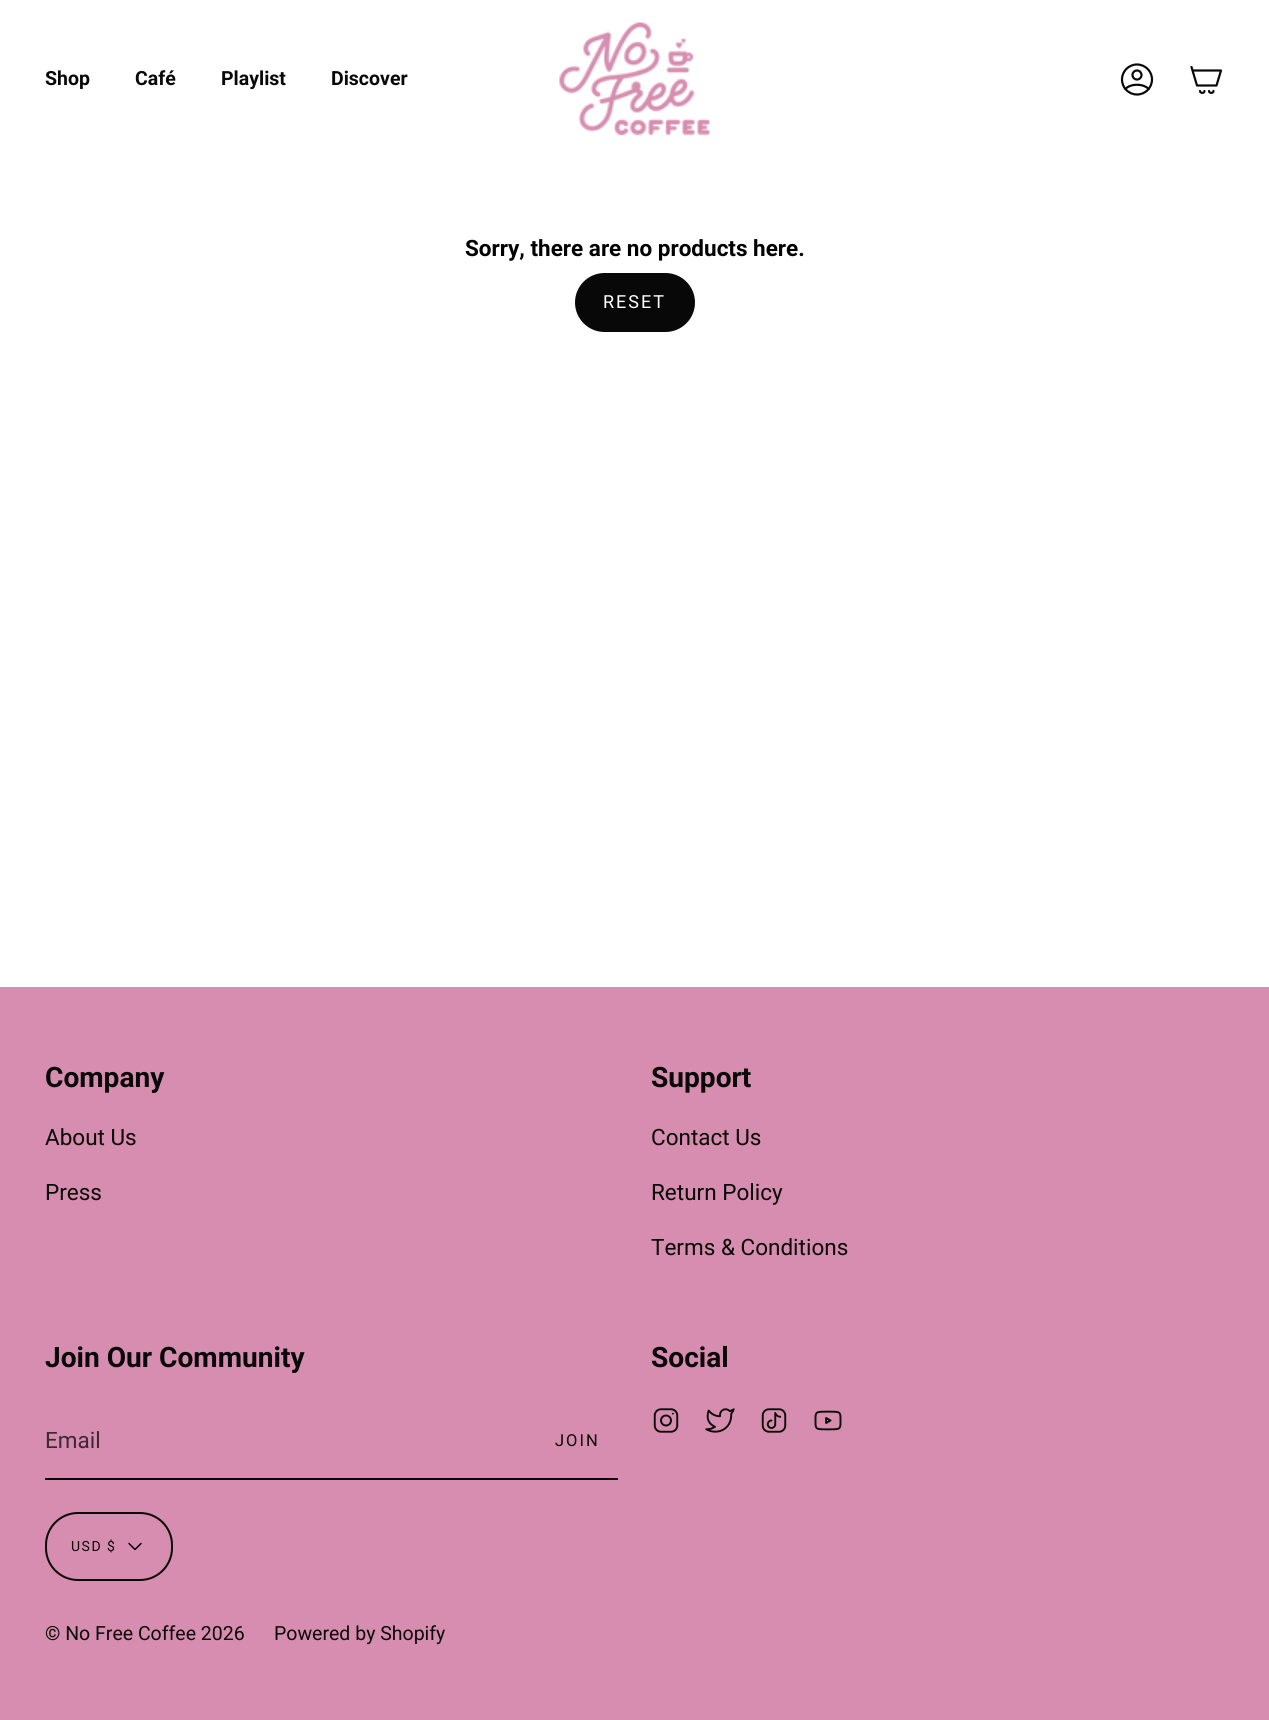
#include <cairo.h>
#include <math.h>
#include <stddef.h>

typedef struct { const char *family; double size; int italic, bold; unsigned color; } style_t;
static cairo_t *ctx;

static void ink(unsigned color) {
    cairo_set_source_rgb(ctx, (color >> 16) / 255.0, (color >> 8 & 255) / 255.0, (color & 255) / 255.0);
}

static void write(double x, double y, const char *s, const style_t *st) {
    cairo_select_font_face(ctx, st->family, st->italic ? CAIRO_FONT_SLANT_ITALIC : CAIRO_FONT_SLANT_NORMAL,
        st->bold ? CAIRO_FONT_WEIGHT_BOLD : CAIRO_FONT_WEIGHT_NORMAL);
    cairo_set_font_size(ctx, st->size);
    ink(st->color);
    cairo_move_to(ctx, x, y);
    cairo_show_text(ctx, s);
}

static void write_spaced(double x, double y, const char *s, double letter, double word) {
    cairo_move_to(ctx, x, y);
    while (*s) {
        char ch[5] = {0};
        int n = 0;
        do ch[n++] = *s++; while ((*s & 0xC0) == 0x80);
        cairo_show_text(ctx, ch);
        cairo_rel_move_to(ctx, letter + word * (*ch == ' '), 0);
    }
}

static void block(double x, double y, double w, double h, unsigned color) {
    ink(color);
    cairo_rectangle(ctx, x, y, w, h);
    cairo_fill(ctx);
}

static void round_path(double x, double y, double w, double h, double r) {
    cairo_new_sub_path(ctx);
    cairo_arc(ctx, x + w - r, y + h - r, r, 0, M_PI / 2);
    cairo_arc(ctx, x + r, y + h - r, r, M_PI / 2, M_PI);
    cairo_arc(ctx, x + r, y + r, r, M_PI, 1.5 * M_PI);
    cairo_arc(ctx, x + w - r, y + r, r, 1.5 * M_PI, 2 * M_PI);
    cairo_close_path(ctx);
}

static void paste(const char *path, double x, double y, double w, double h) {
    cairo_surface_t *image = cairo_image_surface_create_from_png(path);
    cairo_save(ctx);
    cairo_set_source_surface(ctx, image, x, y);
    cairo_rectangle(ctx, x, y, w, h);
    cairo_fill(ctx);
    cairo_restore(ctx);
    cairo_surface_destroy(image);
}

static const style_t s1 = {"Roboto", 19.5, 0, 1, 0x090809};
static const style_t s2 = {"Roboto", 22.5, 0, 1, 0x000000};
static const style_t s3 = {"Roboto", 28.1, 0, 1, 0x090809};
static const style_t s4 = {"Roboto", 22.5, 0, 0, 0x090809};
static const style_t s5 = {"Roboto", 22.5, 0, 0, 0x3d2933};
static const style_t s6 = {"Roboto", 19.5, 0, 0, 0x090809};

int main(void) {
    cairo_surface_t *surface = cairo_image_surface_create(CAIRO_FORMAT_RGB24, 1269, 1720);
    ctx = cairo_create(surface);
    cairo_font_options_t *options = cairo_font_options_create();
    cairo_font_options_set_hint_metrics(options, CAIRO_HINT_METRICS_OFF);
    cairo_font_options_set_hint_style(options, CAIRO_HINT_STYLE_NONE);
    cairo_set_font_options(ctx, options);
    cairo_set_miter_limit(ctx, 4);
    ink(0xffffff);
    cairo_paint(ctx);
    write(45, 85, "Shop", &s1);
    write(135, 85, "Café", &s1);
    write(221, 85, "Playlist", &s1);
    write(331, 85, "Discover", &s1);
    paste("pic1.png", 559, 22, 151, 114);
    paste("pic2.png", 1120, 63, 34, 33);
    cairo_new_path(ctx);
    cairo_move_to(ctx, 1192.5, 70.5);
    cairo_line_to(ctx, 1221, 70.5);
    cairo_line_to(ctx, 1216.5, 85.5);
    cairo_line_to(ctx, 1197, 85.5);
    cairo_close_path(ctx);
    cairo_move_to(ctx, 1192.5, 70.5);
    cairo_line_to(ctx, 1191.5, 67);
    cairo_move_to(ctx, 1204.5, 91);
    cairo_curve_to(ctx, 1204.5, 93.5, 1200, 93.5, 1200, 91);
    cairo_move_to(ctx, 1213.5, 91);
    cairo_curve_to(ctx, 1213.5, 93.5, 1209, 93.5, 1209, 91);
    cairo_set_line_width(ctx, 2.2);
    cairo_set_line_cap(ctx, CAIRO_LINE_CAP_ROUND);
    cairo_set_line_join(ctx, CAIRO_LINE_JOIN_ROUND);
    cairo_stroke(ctx);
    write(465, 256, "Sorry, there are no products here.", &s2);
    ink(0x090809);
    round_path(576, 274, 118, 57, 28.5);
    cairo_fill_preserve(ctx);
    cairo_set_line_width(ctx, 2);
    cairo_set_line_cap(ctx, CAIRO_LINE_CAP_BUTT);
    cairo_set_line_join(ctx, CAIRO_LINE_JOIN_MITER);
    cairo_stroke(ctx);
    cairo_select_font_face(ctx, "Roboto", CAIRO_FONT_SLANT_NORMAL, CAIRO_FONT_WEIGHT_NORMAL);
    cairo_set_font_size(ctx, 18);
    ink(0xffffff);
    write_spaced(603, 308, "RESET", 2, 0);
    block(0, 987, 1269, 733, 0xd78daf);
    write(45, 1087, "Company", &s3);
    write(45, 1145, "About Us", &s4);
    write(45, 1200, "Press", &s4);
    write(651, 1087, "Support", &s3);
    write(651, 1145, "Contact Us", &s4);
    write(651, 1200, "Return Policy", &s4);
    write(651, 1255, "Terms & Conditions", &s4);
    write(45, 1367, "Join Our Community", &s3);
    block(45, 1478, 573, 2, 0x090809);
    write(45, 1448, "Email", &s5);
    cairo_set_font_size(ctx, 16.5);
    ink(0x090809);
    write_spaced(555, 1446, "JOIN", 2, 0);
    write(651, 1367, "Social", &s3);
    paste("pic3.png", 653, 1408, 26, 25);
    paste("pic4.png", 705, 1408, 30, 25);
    paste("pic5.png", 761, 1408, 26, 25);
    paste("pic6.png", 814, 1410, 28, 21);
    round_path(46, 1513, 126, 67, 32);
    cairo_stroke(ctx);
    cairo_select_font_face(ctx, "Roboto", CAIRO_FONT_SLANT_NORMAL, CAIRO_FONT_WEIGHT_NORMAL);
    cairo_set_font_size(ctx, 14);
    write_spaced(71, 1551, "USD $", 1.5, 0);
    cairo_new_path(ctx);
    cairo_move_to(ctx, 129, 1543.5);
    cairo_line_to(ctx, 135, 1549.5);
    cairo_line_to(ctx, 141, 1543.5);
    cairo_set_line_width(ctx, 1.5);
    cairo_set_line_cap(ctx, CAIRO_LINE_CAP_ROUND);
    cairo_set_line_join(ctx, CAIRO_LINE_JOIN_ROUND);
    cairo_stroke(ctx);
    write(45, 1640, "© No Free Coffee 2026", &s6);
    write(274, 1640, "Powered by Shopify", &s6);
    cairo_surface_write_to_png(surface, "screenshot.png");
    cairo_font_options_destroy(options);
    cairo_destroy(ctx);
    cairo_surface_destroy(surface);
    return 0;
}
